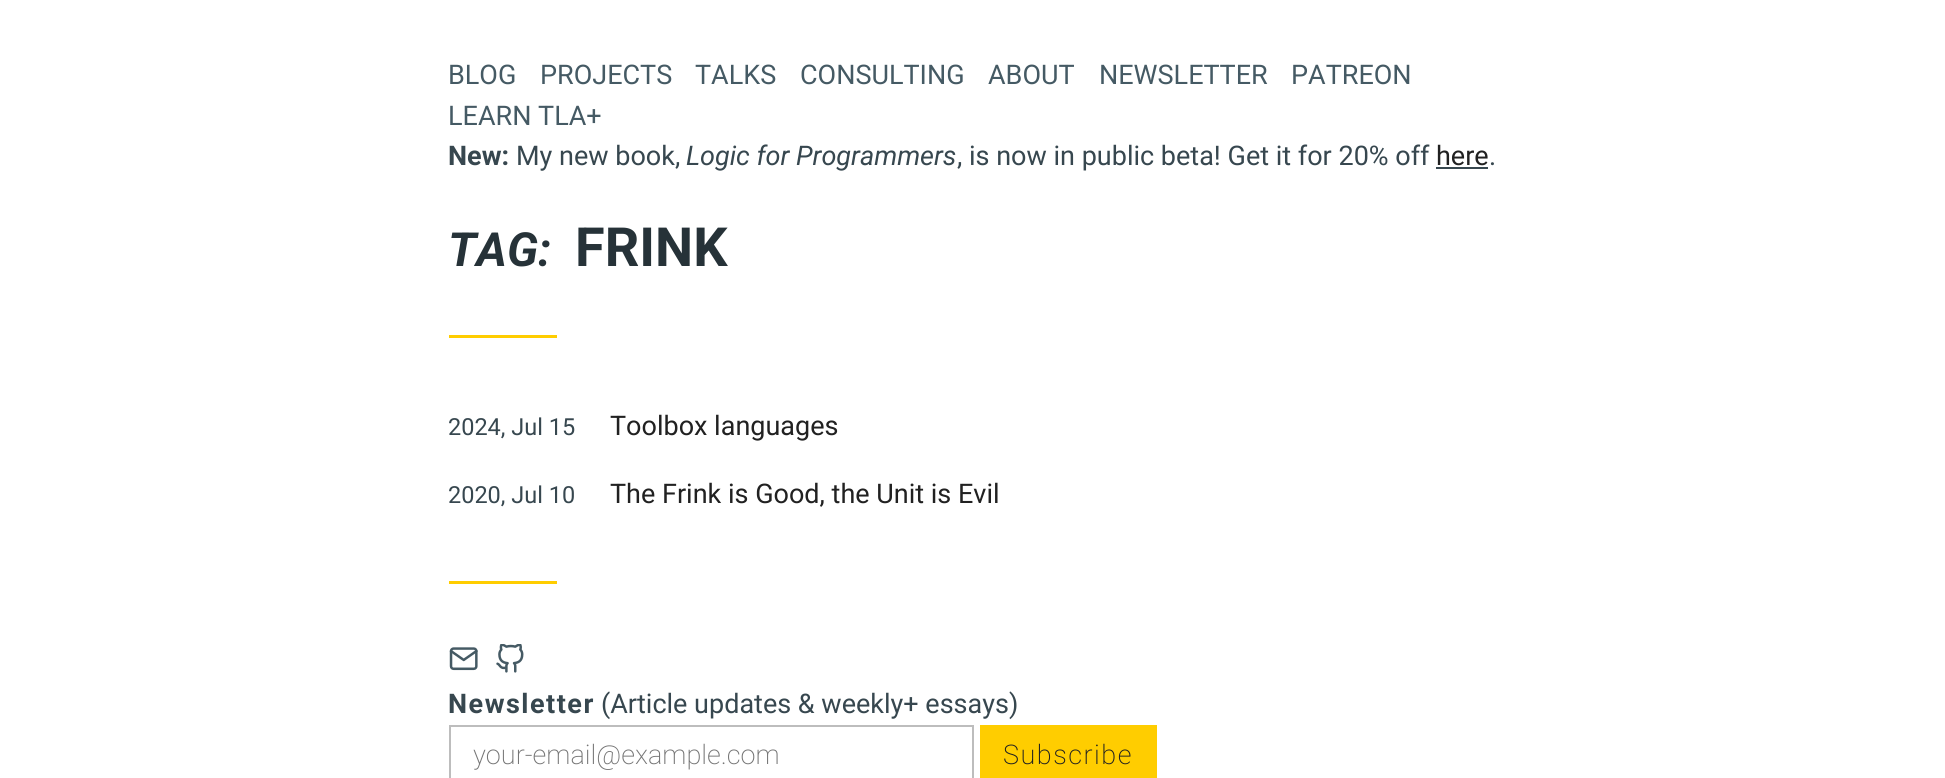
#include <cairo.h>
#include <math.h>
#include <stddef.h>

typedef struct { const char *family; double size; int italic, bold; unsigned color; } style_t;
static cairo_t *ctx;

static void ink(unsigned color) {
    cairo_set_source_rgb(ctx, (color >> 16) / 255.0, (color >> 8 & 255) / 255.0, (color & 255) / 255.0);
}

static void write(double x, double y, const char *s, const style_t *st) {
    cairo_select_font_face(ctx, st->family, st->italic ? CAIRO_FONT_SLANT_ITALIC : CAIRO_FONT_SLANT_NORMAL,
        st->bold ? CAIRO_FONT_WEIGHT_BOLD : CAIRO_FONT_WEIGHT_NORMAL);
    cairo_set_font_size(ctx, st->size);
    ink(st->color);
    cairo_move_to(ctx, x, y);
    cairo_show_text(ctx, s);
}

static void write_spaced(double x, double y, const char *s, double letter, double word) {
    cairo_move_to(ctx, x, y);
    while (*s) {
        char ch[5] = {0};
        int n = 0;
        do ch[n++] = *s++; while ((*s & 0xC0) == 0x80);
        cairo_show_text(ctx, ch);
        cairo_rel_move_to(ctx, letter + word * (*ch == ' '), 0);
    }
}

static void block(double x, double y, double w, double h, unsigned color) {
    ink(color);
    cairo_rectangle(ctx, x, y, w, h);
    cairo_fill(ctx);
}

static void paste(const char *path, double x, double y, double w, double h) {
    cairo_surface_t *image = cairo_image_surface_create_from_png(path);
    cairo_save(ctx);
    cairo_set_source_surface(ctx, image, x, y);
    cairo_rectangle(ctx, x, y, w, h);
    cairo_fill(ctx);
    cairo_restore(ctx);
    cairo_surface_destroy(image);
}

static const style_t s1 = {"Roboto", 27, 0, 0, 0x455a64};
static const style_t s2 = {"Roboto", 27, 0, 1, 0x37474f};
static const style_t s3 = {"Roboto", 27, 0, 0, 0x37474f};
static const style_t s4 = {"Roboto", 27, 1, 0, 0x37474f};
static const style_t s5 = {"Roboto", 27, 0, 0, 0x212121};
static const style_t s6 = {"Roboto", 47, 1, 1, 0x263238};
static const style_t s7 = {"Roboto", 54, 0, 1, 0x263238};
static const style_t s8 = {"Roboto", 23.5, 0, 0, 0x37474f};
static const style_t s9 = {"Roboto ExtraLight", 27, 0, 0, 0x757575};

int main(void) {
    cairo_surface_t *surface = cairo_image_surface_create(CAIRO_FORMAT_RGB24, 1945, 778);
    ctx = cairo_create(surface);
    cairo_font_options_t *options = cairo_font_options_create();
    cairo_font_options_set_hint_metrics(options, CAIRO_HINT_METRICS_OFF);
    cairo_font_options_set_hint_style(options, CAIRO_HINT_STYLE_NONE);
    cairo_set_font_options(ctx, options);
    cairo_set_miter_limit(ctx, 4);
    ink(0xffffff);
    cairo_paint(ctx);
    write(448, 84, "BLOG", &s1);
    write(540, 84, "PROJECTS", &s1);
    write(695, 84, "TALKS", &s1);
    write(800, 84, "CONSULTING", &s1);
    write(988, 84, "ABOUT", &s1);
    write(1099, 84, "NEWSLETTER", &s1);
    write(1291, 84, "PATREON", &s1);
    write(448, 125, "LEARN TLA+", &s1);
    write(448, 165, "New:", &s2);
    write(516, 165, "My new book,", &s3);
    write(686, 165, "Logic for Programmers", &s4);
    write(957, 165, ", is now in public beta! Get it for 20% off", &s3);
    write(1436, 165, "here", &s5);
    block(1436, 167, 52, 2, 0x37474f);
    write(1489, 165, ".", &s3);
    write(448, 266, "TAG:", &s6);
    write(575, 266, "FRINK", &s7);
    block(449, 335, 108, 3, 0xffcd00);
    write(448, 435, "2024, Jul 15", &s8);
    write(610, 435, "Toolbox languages", &s5);
    write(448, 503, "2020, Jul 10", &s8);
    write(610, 503, "The Frink is Good, the Unit is Evil", &s5);
    block(449, 581, 108, 3, 0xffcd00);
    paste("pic1.png", 449, 647, 29, 24);
    paste("pic2.png", 496, 644, 28, 29);
    cairo_select_font_face(ctx, "Roboto", CAIRO_FONT_SLANT_NORMAL, CAIRO_FONT_WEIGHT_BOLD);
    ink(0x37474f);
    write_spaced(448, 713, "Newsletter", 1.5, 0);
    write(601, 713, "(Article updates & weekly+ essays)", &s3);
    cairo_rectangle(ctx, 450, 726, 523, 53);
    ink(0xbdbdbd);
    cairo_stroke(ctx);
    write(473, 764, "your-email@example.com", &s9);
    block(980, 725, 177, 53, 0xffcd00);
    ink(0x212121);
    write_spaced(1003, 764, "Subscribe", 1.5, 0);
    cairo_surface_write_to_png(surface, "screenshot.png");
    cairo_font_options_destroy(options);
    cairo_destroy(ctx);
    cairo_surface_destroy(surface);
    return 0;
}
